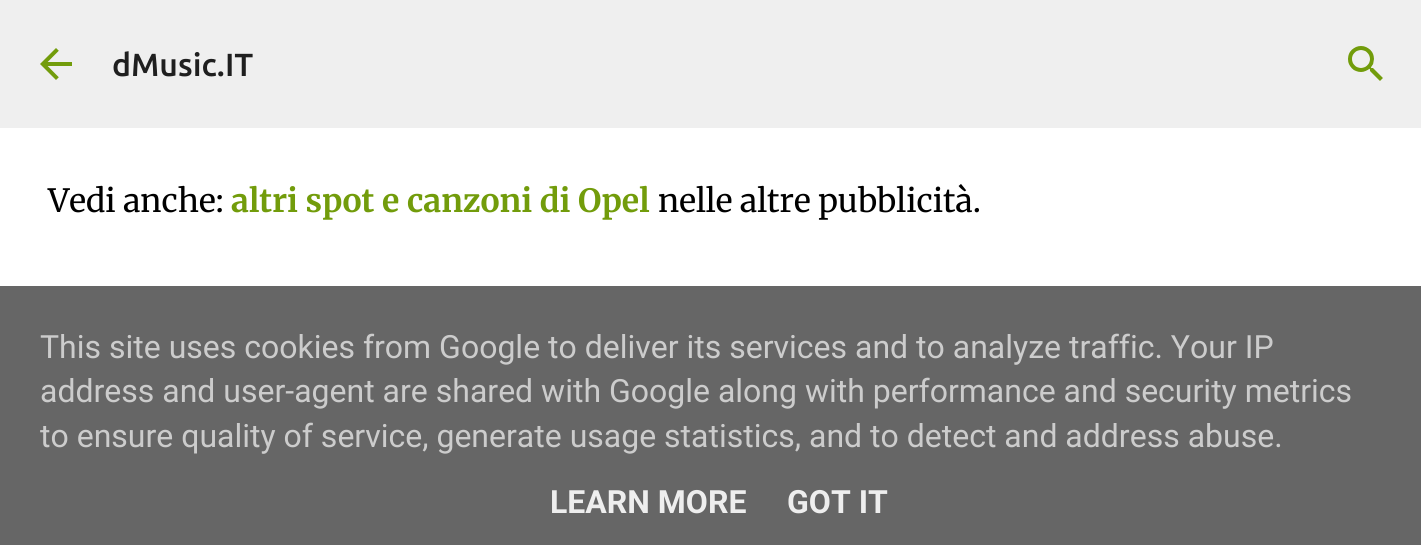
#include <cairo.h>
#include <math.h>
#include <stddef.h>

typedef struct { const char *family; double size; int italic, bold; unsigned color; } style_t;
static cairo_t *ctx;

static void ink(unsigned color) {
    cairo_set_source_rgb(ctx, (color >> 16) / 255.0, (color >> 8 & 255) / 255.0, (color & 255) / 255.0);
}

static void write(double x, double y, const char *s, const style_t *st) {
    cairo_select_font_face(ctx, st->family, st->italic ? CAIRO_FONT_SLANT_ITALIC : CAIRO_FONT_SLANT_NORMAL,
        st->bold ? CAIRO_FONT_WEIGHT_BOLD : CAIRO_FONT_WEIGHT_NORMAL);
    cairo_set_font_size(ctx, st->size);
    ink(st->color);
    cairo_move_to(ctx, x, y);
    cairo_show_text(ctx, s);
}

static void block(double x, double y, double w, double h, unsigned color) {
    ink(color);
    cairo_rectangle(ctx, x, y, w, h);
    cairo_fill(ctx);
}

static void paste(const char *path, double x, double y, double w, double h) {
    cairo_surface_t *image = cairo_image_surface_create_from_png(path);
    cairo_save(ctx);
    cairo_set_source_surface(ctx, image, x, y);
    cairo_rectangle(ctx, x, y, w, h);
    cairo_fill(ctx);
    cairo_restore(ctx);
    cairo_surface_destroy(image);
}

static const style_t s1 = {"Ubuntu Medium", 32, 0, 0, 0x1f1f1f};
static const style_t s2 = {"Merriweather", 32, 0, 0, 0x000000};
static const style_t s3 = {"Merriweather", 32, 0, 1, 0x729c0b};
static const style_t s4 = {"Roboto", 32, 0, 0, 0xcccccc};
static const style_t s5 = {"Roboto", 32, 0, 1, 0xeeeeee};

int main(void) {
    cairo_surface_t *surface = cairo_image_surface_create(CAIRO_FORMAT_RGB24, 1421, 545);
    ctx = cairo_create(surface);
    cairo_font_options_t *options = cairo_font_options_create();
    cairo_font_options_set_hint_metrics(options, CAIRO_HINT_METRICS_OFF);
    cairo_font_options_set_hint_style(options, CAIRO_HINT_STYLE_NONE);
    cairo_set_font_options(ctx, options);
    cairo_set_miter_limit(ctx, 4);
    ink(0xffffff);
    cairo_paint(ctx);
    block(0, 0, 1421, 128, 0xefefef);
    paste("pic1.png", 40, 48, 32, 32);
    write(112, 76, "dMusic.IT", &s1);
    paste("pic2.png", 1348, 46, 35, 35);
    write(48, 212, "Vedi anche:", &s2);
    write(231, 212, "altri spot e canzoni di Opel", &s3);
    write(658, 212, "nelle altre pubblicità.", &s2);
    block(0, 286, 1421, 259, 0x666666);
    write(40, 358, "This site uses cookies from Google to deliver its services and to analyze traffic. Your IP", &s4);
    write(40, 402, "address and user-agent are shared with Google along with performance and security metrics", &s4);
    write(40, 447, "to ensure quality of service, generate usage statistics, and to detect and address abuse.", &s4);
    write(550, 513, "LEARN MORE", &s5);
    write(787, 513, "GOT IT", &s5);
    cairo_surface_write_to_png(surface, "screenshot.png");
    cairo_font_options_destroy(options);
    cairo_destroy(ctx);
    cairo_surface_destroy(surface);
    return 0;
}
